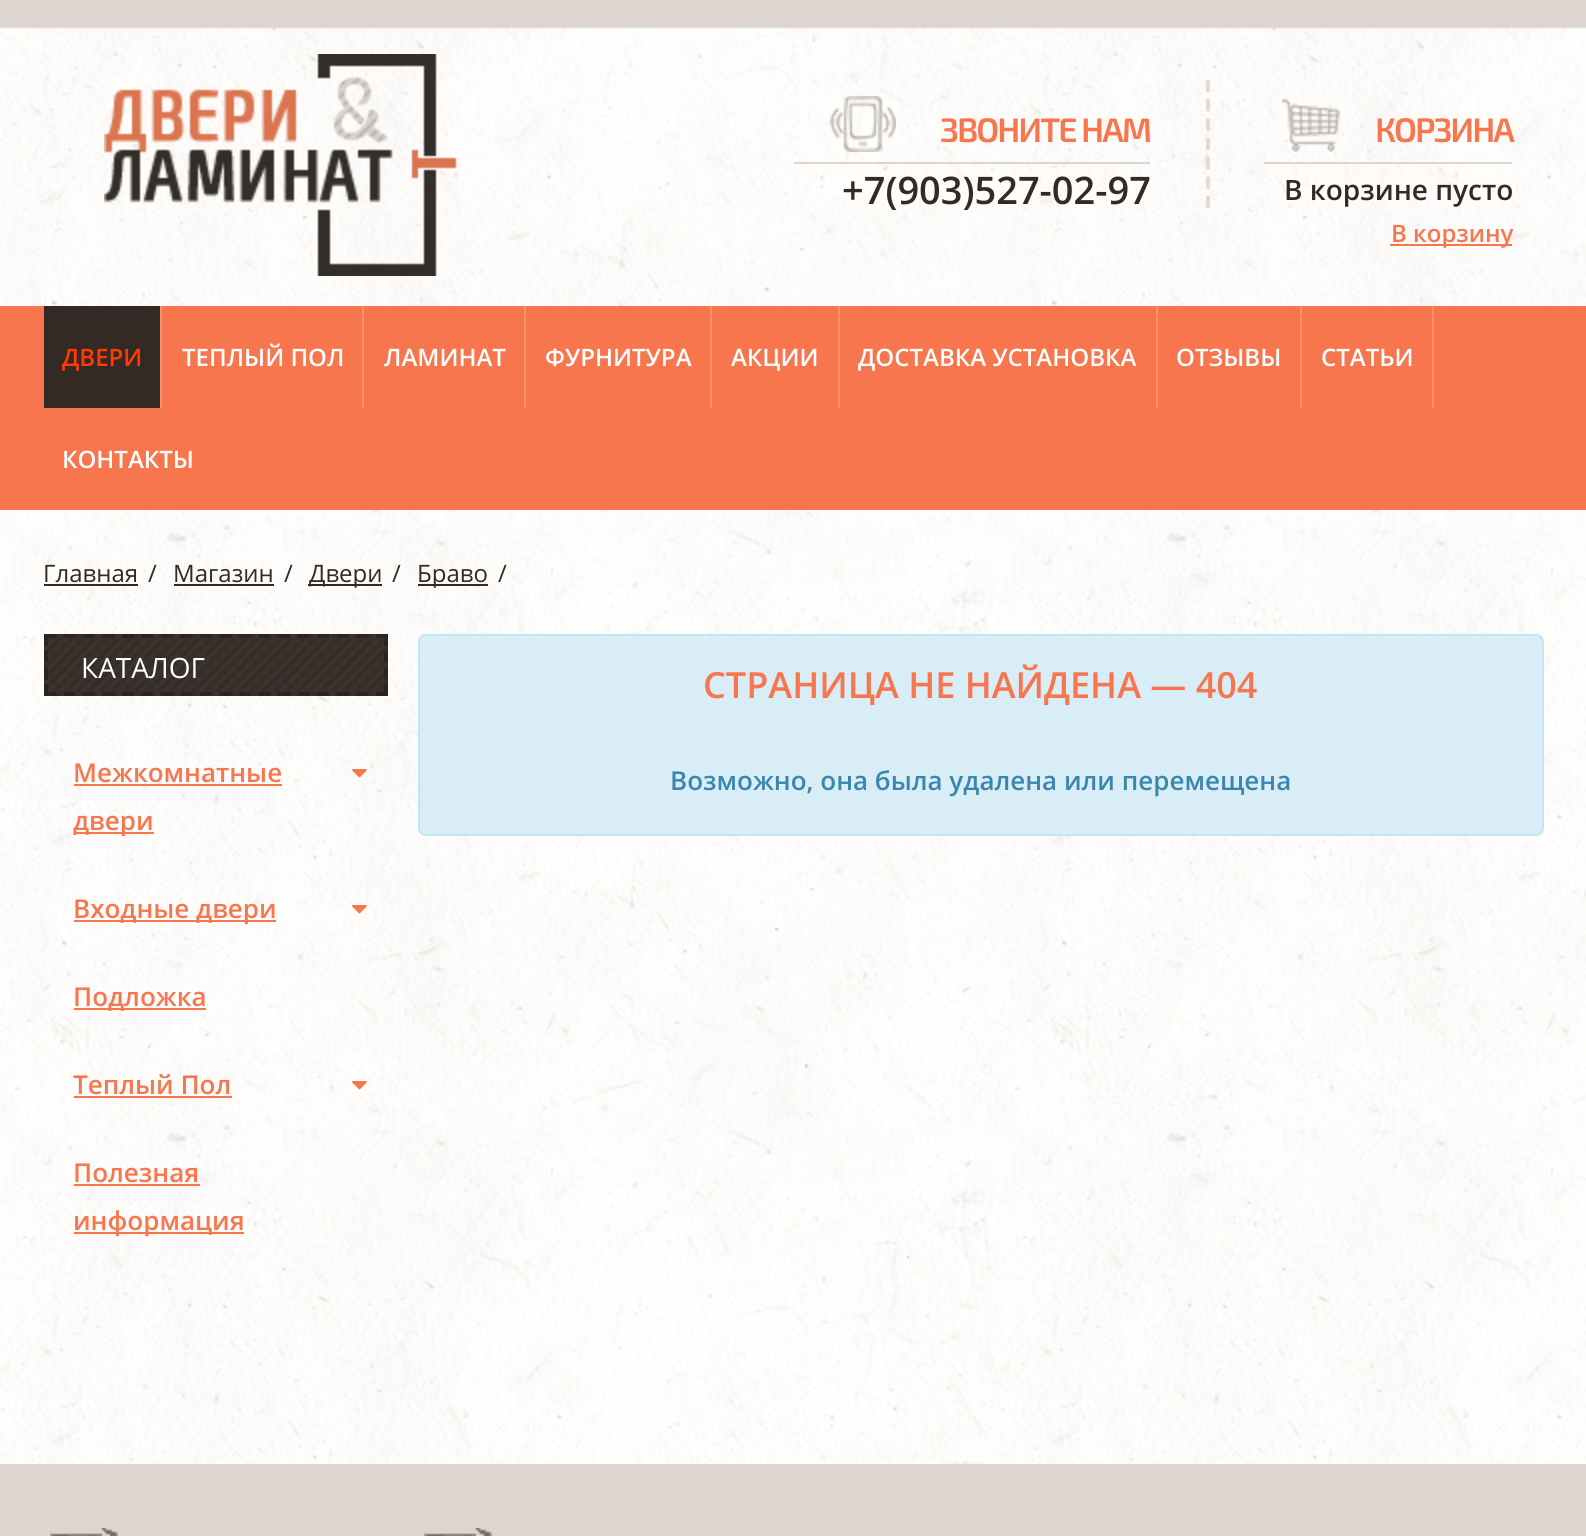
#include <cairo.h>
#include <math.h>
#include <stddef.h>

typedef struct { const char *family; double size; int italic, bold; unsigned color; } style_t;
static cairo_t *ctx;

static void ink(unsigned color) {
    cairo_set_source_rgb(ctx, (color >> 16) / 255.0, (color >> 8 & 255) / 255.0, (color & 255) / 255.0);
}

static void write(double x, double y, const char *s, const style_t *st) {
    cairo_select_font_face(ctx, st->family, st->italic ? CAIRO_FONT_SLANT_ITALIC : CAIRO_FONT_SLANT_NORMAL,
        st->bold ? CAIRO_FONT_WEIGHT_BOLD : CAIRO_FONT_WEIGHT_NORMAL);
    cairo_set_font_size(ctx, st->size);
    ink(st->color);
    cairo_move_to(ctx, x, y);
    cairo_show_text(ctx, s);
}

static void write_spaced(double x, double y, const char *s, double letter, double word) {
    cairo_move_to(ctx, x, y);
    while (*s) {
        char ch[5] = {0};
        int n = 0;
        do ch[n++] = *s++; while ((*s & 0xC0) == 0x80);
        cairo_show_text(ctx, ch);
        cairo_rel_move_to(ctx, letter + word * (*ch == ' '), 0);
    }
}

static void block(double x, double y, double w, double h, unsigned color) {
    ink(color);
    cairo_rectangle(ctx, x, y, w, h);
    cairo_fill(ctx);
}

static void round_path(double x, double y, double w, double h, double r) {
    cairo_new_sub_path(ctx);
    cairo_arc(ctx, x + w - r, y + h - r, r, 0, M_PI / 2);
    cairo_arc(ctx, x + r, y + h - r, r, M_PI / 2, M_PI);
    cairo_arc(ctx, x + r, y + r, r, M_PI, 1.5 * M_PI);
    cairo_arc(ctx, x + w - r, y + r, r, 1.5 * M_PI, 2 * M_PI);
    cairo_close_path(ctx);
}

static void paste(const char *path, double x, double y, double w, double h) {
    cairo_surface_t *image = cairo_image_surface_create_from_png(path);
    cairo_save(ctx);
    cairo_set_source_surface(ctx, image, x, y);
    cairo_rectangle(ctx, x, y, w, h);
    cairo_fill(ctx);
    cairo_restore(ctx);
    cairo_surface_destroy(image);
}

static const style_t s1 = {"Open Sans SemiBold", 38, 0, 0, 0x332a25};
static const style_t s2 = {"Open Sans SemiBold", 28, 0, 0, 0x332a25};
static const style_t s3 = {"Open Sans SemiBold", 24, 0, 0, 0xf7764d};
static const style_t s4 = {"Open Sans SemiBold", 24, 0, 0, 0xff3b00};
static const style_t s5 = {"Open Sans SemiBold", 24, 0, 0, 0xffffff};
static const style_t s6 = {"Open Sans", 24, 0, 0, 0x332a25};
static const style_t s7 = {"Open Sans", 28, 0, 0, 0xffffff};
static const style_t s8 = {"Open Sans SemiBold", 26, 0, 0, 0xf7764d};
static const style_t s9 = {"Open Sans SemiBold", 36, 0, 0, 0xf7764d};
static const style_t s10 = {"Open Sans SemiBold", 26, 0, 0, 0x3a87ad};

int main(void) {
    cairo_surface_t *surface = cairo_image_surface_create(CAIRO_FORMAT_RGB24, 1586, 1536);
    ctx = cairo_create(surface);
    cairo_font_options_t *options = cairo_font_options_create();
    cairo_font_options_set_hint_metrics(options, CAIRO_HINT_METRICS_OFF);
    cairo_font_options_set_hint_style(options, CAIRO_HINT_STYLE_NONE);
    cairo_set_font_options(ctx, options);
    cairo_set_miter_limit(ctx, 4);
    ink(0xffffff);
    cairo_paint(ctx);
    paste("pic1.png", 0, 510, 1586, 954);
    paste("pic2.png", 0, 0, 1586, 306);
    paste("pic3.png", 104, 54, 354, 222);
    cairo_new_path(ctx);
    cairo_move_to(ctx, 1208, 80);
    cairo_line_to(ctx, 1208, 208);
    ink(0xe2dad5);
    cairo_set_line_width(ctx, 4);
    cairo_set_dash(ctx, (double[]){12, 7.34}, 2, 0);
    cairo_stroke(ctx);
    paste("pic4.png", 830, 96, 66, 56);
    block(794, 162, 356, 2, 0xded5d0);
    cairo_select_font_face(ctx, "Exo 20 SemiBold", CAIRO_FONT_SLANT_NORMAL, CAIRO_FONT_WEIGHT_NORMAL);
    cairo_set_font_size(ctx, 34);
    ink(0xf7764d);
    write_spaced(940, 142, "ЗВОНИТЕ НАМ", -2, 0);
    write(842, 204, "+7(903)527-02-97", &s1);
    paste("pic5.png", 1282, 98, 58, 54);
    block(1264, 162, 248, 2, 0xded5d0);
    cairo_select_font_face(ctx, "Exo 20 SemiBold", CAIRO_FONT_SLANT_NORMAL, CAIRO_FONT_WEIGHT_NORMAL);
    cairo_set_font_size(ctx, 34);
    ink(0xf7764d);
    write_spaced(1375, 142, "КОРЗИНА", -2, 0);
    write(1284, 200, "В корзине пусто", &s2);
    block(1390, 244, 122, 2, 0xf7764d);
    write(1391, 242, "В корзину", &s3);
    block(0, 306, 1586, 204, 0xf7764d);
    block(160, 306, 2, 102, 0xfb8f6d);
    block(44, 306, 116, 102, 0x332a25);
    write(62, 366, "ДВЕРИ", &s4);
    block(362, 306, 2, 102, 0xfb8f6d);
    write(182, 366, "ТЕПЛЫЙ ПОЛ", &s5);
    block(524, 306, 2, 102, 0xfb8f6d);
    write(384, 366, "ЛАМИНАТ", &s5);
    block(710, 306, 2, 102, 0xfb8f6d);
    write(545, 366, "ФУРНИТУРА", &s5);
    block(838, 306, 2, 102, 0xfb8f6d);
    write(731, 366, "АКЦИИ", &s5);
    block(1156, 306, 2, 102, 0xfb8f6d);
    write(858, 366, "ДОСТАВКА УСТАНОВКА", &s5);
    block(1300, 306, 2, 102, 0xfb8f6d);
    write(1176, 366, "ОТЗЫВЫ", &s5);
    block(1432, 306, 2, 102, 0xfb8f6d);
    write(1321, 366, "СТАТЬИ", &s5);
    write(62, 468, "КОНТАКТЫ", &s5);
    write(43, 582, "Главная", &s6);
    block(44, 584, 94, 2, 0x332a25);
    write(148, 582, "/", &s6);
    write(173, 582, "Магазин", &s6);
    block(174, 584, 100, 2, 0x332a25);
    write(284, 582, "/", &s6);
    block(308, 584, 74, 2, 0x332a25);
    write(309, 582, "Двери", &s6);
    write(392, 582, "/", &s6);
    block(418, 584, 70, 2, 0x332a25);
    write(417, 582, "Браво", &s6);
    write(498, 582, "/", &s6);
    paste("pic6.png", 44, 634, 344, 62);
    cairo_new_path(ctx);
    cairo_move_to(ctx, 44, 636);
    cairo_line_to(ctx, 388, 636);
    ink(0x2c2420);
    cairo_set_dash(ctx, (double[]){12, 7.52}, 2, 0);
    cairo_stroke(ctx);
    cairo_new_path(ctx);
    cairo_move_to(ctx, 386, 634);
    cairo_line_to(ctx, 386, 696);
    cairo_set_dash(ctx, (double[]){12, 4.66}, 2, 0);
    cairo_stroke(ctx);
    cairo_new_path(ctx);
    cairo_move_to(ctx, 44, 694);
    cairo_line_to(ctx, 388, 694);
    cairo_set_dash(ctx, (double[]){12, 7.52}, 2, 0);
    cairo_stroke(ctx);
    cairo_new_path(ctx);
    cairo_move_to(ctx, 46, 634);
    cairo_line_to(ctx, 46, 696);
    cairo_set_dash(ctx, (double[]){12, 4.66}, 2, 0);
    cairo_stroke(ctx);
    write(81, 678, "КАТАЛОГ", &s7);
    write(73, 782, "Межкомнатные", &s8);
    block(74, 784, 208, 2, 0xf7764d);
    block(74, 832, 80, 2, 0xf7764d);
    write(73, 830, "двери", &s8);
    paste("pic7.png", 352, 769, 15, 9);
    block(74, 920, 202, 2, 0xf7764d);
    write(73, 918, "Входные двери", &s8);
    paste("pic8.png", 352, 905, 15, 9);
    block(74, 1008, 132, 2, 0xf7764d);
    write(73, 1006, "Подложка", &s8);
    write(73, 1094, "Теплый Пол", &s8);
    block(74, 1096, 158, 2, 0xf7764d);
    paste("pic9.png", 352, 1081, 15, 9);
    write(73, 1182, "Полезная", &s8);
    block(74, 1184, 126, 2, 0xf7764d);
    block(74, 1232, 170, 2, 0xf7764d);
    write(73, 1230, "информация", &s8);
    ink(0xd9edf7);
    round_path(419, 635, 1124, 200, 7);
    cairo_fill_preserve(ctx);
    ink(0xbce8f1);
    cairo_set_line_width(ctx, 2);
    cairo_set_dash(ctx, NULL, 0, 0);
    cairo_stroke(ctx);
    write(703, 698, "СТРАНИЦА НЕ НАЙДЕНА — 404", &s9);
    write(670, 790, "Возможно, она была удалена или перемещена", &s10);
    block(0, 1464, 1586, 72, 0xded5d0);
    paste("pic10.png", 50, 1528, 68, 8);
    paste("pic10.png", 424, 1528, 68, 8);
    cairo_surface_write_to_png(surface, "screenshot.png");
    cairo_font_options_destroy(options);
    cairo_destroy(ctx);
    cairo_surface_destroy(surface);
    return 0;
}
